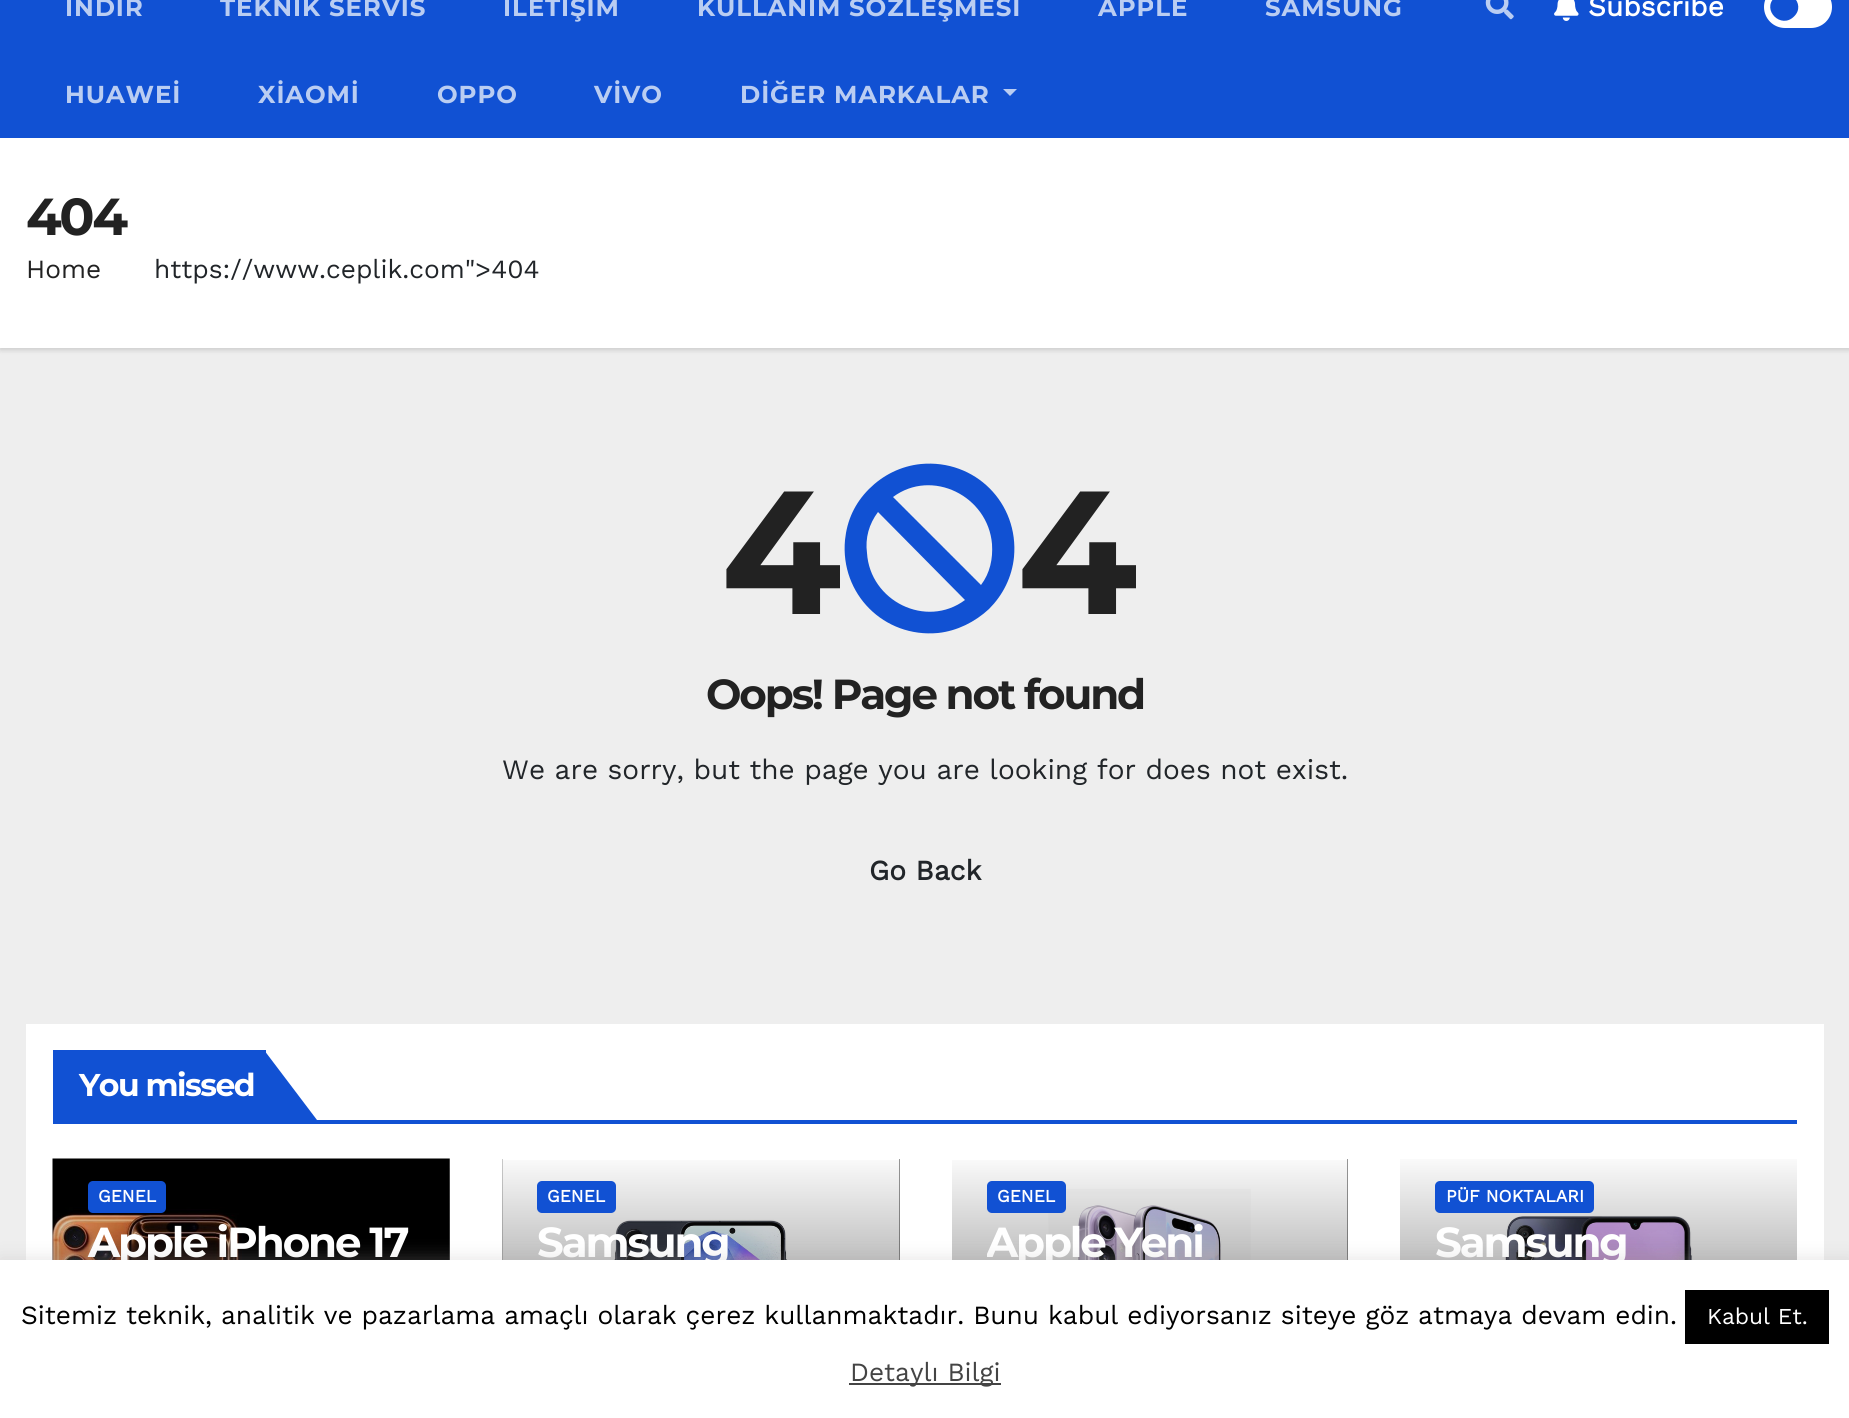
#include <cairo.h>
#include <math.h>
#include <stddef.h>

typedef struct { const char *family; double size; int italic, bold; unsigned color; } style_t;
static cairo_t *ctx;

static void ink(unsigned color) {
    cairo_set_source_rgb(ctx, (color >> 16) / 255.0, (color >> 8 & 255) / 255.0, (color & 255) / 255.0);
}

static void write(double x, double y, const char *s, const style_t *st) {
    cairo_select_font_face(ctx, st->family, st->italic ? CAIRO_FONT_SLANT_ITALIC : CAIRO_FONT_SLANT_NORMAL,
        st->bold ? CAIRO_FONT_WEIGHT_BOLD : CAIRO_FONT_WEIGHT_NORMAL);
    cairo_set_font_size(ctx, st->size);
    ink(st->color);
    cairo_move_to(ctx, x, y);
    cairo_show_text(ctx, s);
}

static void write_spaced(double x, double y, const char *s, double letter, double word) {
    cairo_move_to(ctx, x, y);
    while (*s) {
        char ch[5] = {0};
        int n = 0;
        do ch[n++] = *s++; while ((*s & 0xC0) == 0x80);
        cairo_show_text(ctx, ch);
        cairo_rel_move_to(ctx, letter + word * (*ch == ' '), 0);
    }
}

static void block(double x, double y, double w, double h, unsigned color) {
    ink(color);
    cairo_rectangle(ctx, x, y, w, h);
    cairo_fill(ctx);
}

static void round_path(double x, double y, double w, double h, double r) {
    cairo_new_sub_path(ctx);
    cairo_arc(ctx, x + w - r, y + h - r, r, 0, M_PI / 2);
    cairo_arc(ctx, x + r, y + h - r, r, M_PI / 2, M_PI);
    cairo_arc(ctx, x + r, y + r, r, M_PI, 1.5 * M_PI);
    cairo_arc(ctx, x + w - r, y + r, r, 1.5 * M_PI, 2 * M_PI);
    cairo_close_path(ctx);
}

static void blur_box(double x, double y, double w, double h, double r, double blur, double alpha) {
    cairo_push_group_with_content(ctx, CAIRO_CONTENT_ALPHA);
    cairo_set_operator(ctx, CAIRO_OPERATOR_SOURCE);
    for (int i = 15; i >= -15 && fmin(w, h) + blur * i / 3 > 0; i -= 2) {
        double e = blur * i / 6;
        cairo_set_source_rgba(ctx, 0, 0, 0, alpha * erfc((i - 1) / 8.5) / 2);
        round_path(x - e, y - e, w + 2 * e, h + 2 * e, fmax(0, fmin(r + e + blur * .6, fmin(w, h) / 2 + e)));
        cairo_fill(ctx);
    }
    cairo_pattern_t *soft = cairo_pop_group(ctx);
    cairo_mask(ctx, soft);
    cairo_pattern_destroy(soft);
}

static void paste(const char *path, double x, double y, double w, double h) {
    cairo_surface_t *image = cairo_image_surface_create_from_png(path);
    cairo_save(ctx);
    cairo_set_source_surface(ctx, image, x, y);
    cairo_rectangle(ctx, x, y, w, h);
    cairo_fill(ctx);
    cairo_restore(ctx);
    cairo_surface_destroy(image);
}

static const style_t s1 = {"Work Sans", 28, 0, 1, 0xffffff};
static const style_t s2 = {"Work Sans", 26.25, 0, 0, 0x222222};
static const style_t s3 = {"Work Sans", 26.25, 0, 0, 0x212529};
static const style_t s4 = {"Work Sans", 28, 0, 0, 0x212529};
static const style_t s5 = {"Work Sans", 28, 0, 1, 0x212529};
static const style_t s6 = {"Work Sans", 17.5, 0, 1, 0xffffff};
static const style_t s7 = {"Work Sans", 26.25, 0, 0, 0x000000};
static const style_t s8 = {"Work Sans", 22.75, 0, 0, 0xffffff};
static const style_t s9 = {"Work Sans", 26.25, 0, 0, 0x444444};

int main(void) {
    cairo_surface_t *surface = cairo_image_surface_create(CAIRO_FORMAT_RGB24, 1849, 1418);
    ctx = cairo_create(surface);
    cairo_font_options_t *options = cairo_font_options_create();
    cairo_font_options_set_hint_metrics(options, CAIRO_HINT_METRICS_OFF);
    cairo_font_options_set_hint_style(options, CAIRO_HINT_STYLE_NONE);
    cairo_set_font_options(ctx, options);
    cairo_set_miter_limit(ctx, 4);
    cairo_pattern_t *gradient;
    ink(0xeeeeee);
    cairo_paint(ctx);
    ink(0x000000);
    blur_box(0, 140, 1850, 210, 0, 2.5, 0.15);
    block(0, 0, 1849, 138, 0x1151d3);
    cairo_select_font_face(ctx, "Montserrat", CAIRO_FONT_SLANT_NORMAL, CAIRO_FONT_WEIGHT_BOLD);
    cairo_set_font_size(ctx, 24.5);
    ink(0xbacdf2);
    write_spaced(65, 16, "İNDİR", 0.9, 0);
    write_spaced(220, 16, "TEKNİK SERVİS", 0.9, 0);
    write_spaced(503, 16, "İLETİŞİM", 0.9, 0);
    write_spaced(697, 16, "KULLANIM SÖZLEŞMESİ", 0.9, 0);
    write_spaced(1098, 16, "APPLE", 0.9, 0);
    write_spaced(1265, 16, "SAMSUNG", 0.9, 0);
    write_spaced(65, 103, "HUAWEİ", 0.9, 0);
    write_spaced(258, 103, "XİAOMİ", 0.9, 0);
    write_spaced(437, 103, "OPPO", 0.9, 0);
    write_spaced(594, 103, "VİVO", 0.9, 0);
    write_spaced(740, 103, "DİĞER MARKALAR", 0.9, 0);
    cairo_new_path(ctx);
    cairo_move_to(ctx, 1003, 89);
    cairo_line_to(ctx, 1017, 89);
    cairo_line_to(ctx, 1010, 96);
    cairo_close_path(ctx);
    cairo_fill(ctx);
    paste("pic1.png", 1485, 0, 29, 20);
    paste("pic2.png", 1554, 0, 25, 21);
    write(1588, 16, "Subscribe", &s1);
    round_path(1764, -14, 68, 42, 21);
    cairo_fill(ctx);
    ink(0x1151d3);
    cairo_new_path(ctx);
    cairo_move_to(ctx, 1774.5, -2.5);
    cairo_curve_to(ctx, 1787.5, -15.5, 1807, 4, 1794, 16.5);
    cairo_curve_to(ctx, 1781, 29.5, 1761.5, 10, 1774.5, -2.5);
    cairo_close_path(ctx);
    cairo_fill(ctx);
    block(0, 138, 1849, 210, 0xffffff);
    cairo_select_font_face(ctx, "Montserrat", CAIRO_FONT_SLANT_NORMAL, CAIRO_FONT_WEIGHT_BOLD);
    cairo_set_font_size(ctx, 52);
    ink(0x222222);
    write_spaced(26, 235, "404", -2.5, 0);
    write(26, 278, "Home", &s2);
    write(154, 278, "https://www.ceplik.com\">404", &s3);
    cairo_select_font_face(ctx, "Montserrat", CAIRO_FONT_SLANT_NORMAL, CAIRO_FONT_WEIGHT_BOLD);
    cairo_set_font_size(ctx, 175);
    ink(0x222222);
    write_spaced(721, 614, "4", -9, 0);
    ink(0x1151d3);
    cairo_new_path(ctx);
    cairo_move_to(ctx, 869, 489);
    cairo_curve_to(ctx, 883, 475, 901, 466, 921, 464);
    cairo_curve_to(ctx, 975, 459, 1019, 503, 1014, 557);
    cairo_curve_to(ctx, 1012, 577, 1003, 595, 989, 609);
    cairo_curve_to(ctx, 975, 622, 957, 631, 938, 633);
    cairo_curve_to(ctx, 884, 638, 840, 594, 845, 540);
    cairo_curve_to(ctx, 847, 520, 855, 503, 869, 489);
    cairo_close_path(ctx);
    cairo_move_to(ctx, 992, 544);
    cairo_curve_to(ctx, 988, 496, 932, 468, 893, 497);
    cairo_line_to(ctx, 981, 585);
    cairo_curve_to(ctx, 990, 573, 993, 559, 992, 544);
    cairo_close_path(ctx);
    cairo_move_to(ctx, 867, 553);
    cairo_curve_to(ctx, 870, 601, 926, 629, 965, 600);
    cairo_line_to(ctx, 878, 512);
    cairo_curve_to(ctx, 869, 524, 865, 538, 867, 553);
    cairo_close_path(ctx);
    cairo_fill(ctx);
    ink(0x222222);
    write_spaced(1017, 614, "4", -9, 0);
    cairo_set_font_size(ctx, 42);
    write_spaced(706, 709, "Oops! Page not found", -2.1, 0);
    write(502, 779, "We are sorry, but the page you are looking for does not exist.", &s4);
    write(869, 880, "Go Back", &s5);
    block(26, 1024, 1798, 236, 0xffffff);
    block(53, 1120, 1744, 4, 0x1151d3);
    block(53, 1050, 213, 70, 0x1151d3);
    cairo_select_font_face(ctx, "Montserrat", CAIRO_FONT_SLANT_NORMAL, CAIRO_FONT_WEIGHT_BOLD);
    cairo_set_font_size(ctx, 31.5);
    ink(0xffffff);
    write_spaced(79, 1096, "You missed", -1.5, 0);
    ink(0x1151d3);
    cairo_new_path(ctx);
    cairo_move_to(ctx, 264, 1120);
    cairo_line_to(ctx, 264, 1050);
    cairo_line_to(ctx, 317, 1120);
    cairo_close_path(ctx);
    cairo_fill(ctx);
    paste("pic3.png", 52, 1158, 398, 102);
    gradient = cairo_pattern_create_linear(251, 1150, 251, 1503);
    cairo_pattern_add_color_stop_rgba(gradient, 0, 0, 0, 0, 0);
    cairo_pattern_add_color_stop_rgba(gradient, 0.5, 0, 0, 0, 0.4);
    cairo_pattern_add_color_stop_rgba(gradient, 1, 0, 0, 0, 0.7);
    cairo_set_source(ctx, gradient);
    cairo_pattern_destroy(gradient);
    cairo_rectangle(ctx, 53, 1168, 397, 92);
    cairo_fill(ctx);
    ink(0x1151d3);
    round_path(88, 1181, 78, 32, 5);
    cairo_fill(ctx);
    write(98, 1202, "GENEL", &s6);
    cairo_select_font_face(ctx, "Montserrat", CAIRO_FONT_SLANT_NORMAL, CAIRO_FONT_WEIGHT_BOLD);
    cairo_set_font_size(ctx, 42);
    write_spaced(88, 1257, "Apple iPhone 17", -2.1, 0);
    block(502, 1159, 398, 101, 0x333333);
    paste("pic4.png", 502, 1159, 398, 101);
    gradient = cairo_pattern_create_linear(701, 1150, 701, 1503);
    cairo_pattern_add_color_stop_rgba(gradient, 0, 0, 0, 0, 0);
    cairo_pattern_add_color_stop_rgba(gradient, 0.5, 0, 0, 0, 0.4);
    cairo_pattern_add_color_stop_rgba(gradient, 1, 0, 0, 0, 0.7);
    cairo_set_source(ctx, gradient);
    cairo_pattern_destroy(gradient);
    cairo_rectangle(ctx, 502, 1160, 398, 100);
    cairo_fill(ctx);
    ink(0x1151d3);
    round_path(537, 1181, 79, 32, 5);
    cairo_fill(ctx);
    write(547, 1202, "GENEL", &s6);
    cairo_select_font_face(ctx, "Montserrat", CAIRO_FONT_SLANT_NORMAL, CAIRO_FONT_WEIGHT_BOLD);
    cairo_set_font_size(ctx, 42);
    write_spaced(537, 1257, "Samsung", -2.1, 0);
    block(1347, 1159, 1, 101, 0x333333);
    paste("pic5.png", 952, 1159, 396, 101);
    gradient = cairo_pattern_create_linear(1150, 1150, 1150, 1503);
    cairo_pattern_add_color_stop_rgba(gradient, 0, 0, 0, 0, 0);
    cairo_pattern_add_color_stop_rgba(gradient, 0.5, 0, 0, 0, 0.4);
    cairo_pattern_add_color_stop_rgba(gradient, 1, 0, 0, 0, 0.7);
    cairo_set_source(ctx, gradient);
    cairo_pattern_destroy(gradient);
    cairo_rectangle(ctx, 952, 1160, 396, 100);
    cairo_fill(ctx);
    ink(0x1151d3);
    round_path(987, 1181, 79, 32, 5);
    cairo_fill(ctx);
    write(997, 1202, "GENEL", &s6);
    cairo_save(ctx);
    cairo_rectangle(ctx, 987, 1220, 326, 131);
    cairo_clip(ctx);
    cairo_select_font_face(ctx, "Montserrat", CAIRO_FONT_SLANT_NORMAL, CAIRO_FONT_WEIGHT_BOLD);
    cairo_set_font_size(ctx, 42);
    write_spaced(986, 1257, "Apple Yeni", -2.1, 0);
    cairo_restore(ctx);
    paste("pic6.png", 1400, 1159, 397, 101);
    ink(0x1151d3);
    round_path(1435, 1181, 159, 32, 5);
    cairo_fill(ctx);
    write(1446, 1202, "PÜF NOKTALARI", &s6);
    cairo_select_font_face(ctx, "Montserrat", CAIRO_FONT_SLANT_NORMAL, CAIRO_FONT_WEIGHT_BOLD);
    cairo_set_font_size(ctx, 42);
    write_spaced(1435, 1257, "Samsung", -2.1, 0);
    ink(0xacabab);
    blur_box(0, 1258, 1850, 160, 0, 9, 0.3);
    block(0, 1260, 1849, 158, 0xffffff);
    write(21, 1324, "Sitemiz teknik, analitik ve pazarlama amaçlı olarak çerez kullanmaktadır. Bunu kabul ediyorsanız siteye göz atmaya devam edin.", &s7);
    block(1685, 1290, 144, 54, 0x000000);
    write(1707, 1324, "Kabul Et.", &s8);
    block(849, 1383, 152, 2, 0x444444);
    write(850, 1381, "Detaylı Bilgi", &s9);
    cairo_surface_write_to_png(surface, "screenshot.png");
    cairo_font_options_destroy(options);
    cairo_destroy(ctx);
    cairo_surface_destroy(surface);
    return 0;
}
